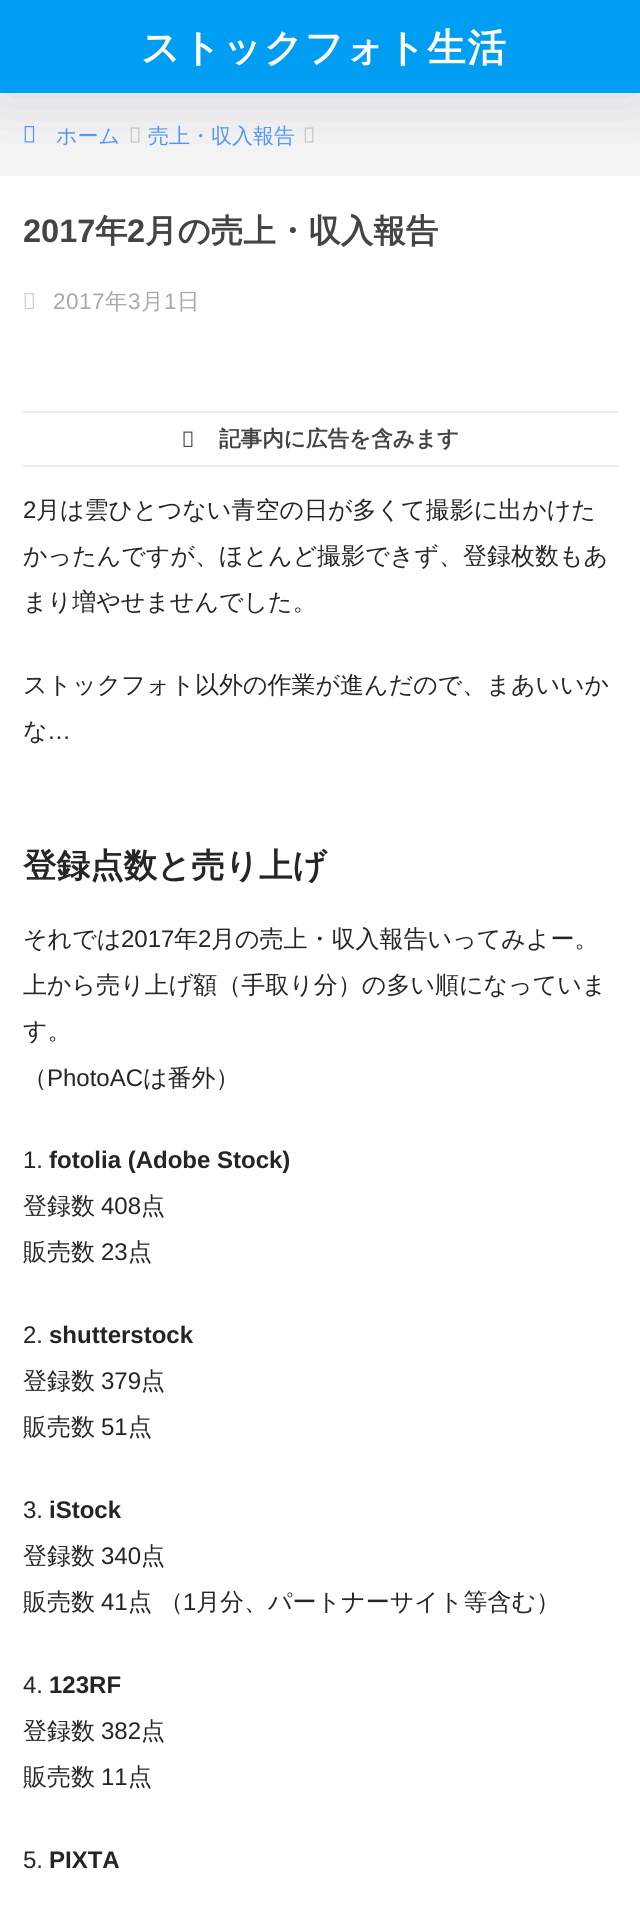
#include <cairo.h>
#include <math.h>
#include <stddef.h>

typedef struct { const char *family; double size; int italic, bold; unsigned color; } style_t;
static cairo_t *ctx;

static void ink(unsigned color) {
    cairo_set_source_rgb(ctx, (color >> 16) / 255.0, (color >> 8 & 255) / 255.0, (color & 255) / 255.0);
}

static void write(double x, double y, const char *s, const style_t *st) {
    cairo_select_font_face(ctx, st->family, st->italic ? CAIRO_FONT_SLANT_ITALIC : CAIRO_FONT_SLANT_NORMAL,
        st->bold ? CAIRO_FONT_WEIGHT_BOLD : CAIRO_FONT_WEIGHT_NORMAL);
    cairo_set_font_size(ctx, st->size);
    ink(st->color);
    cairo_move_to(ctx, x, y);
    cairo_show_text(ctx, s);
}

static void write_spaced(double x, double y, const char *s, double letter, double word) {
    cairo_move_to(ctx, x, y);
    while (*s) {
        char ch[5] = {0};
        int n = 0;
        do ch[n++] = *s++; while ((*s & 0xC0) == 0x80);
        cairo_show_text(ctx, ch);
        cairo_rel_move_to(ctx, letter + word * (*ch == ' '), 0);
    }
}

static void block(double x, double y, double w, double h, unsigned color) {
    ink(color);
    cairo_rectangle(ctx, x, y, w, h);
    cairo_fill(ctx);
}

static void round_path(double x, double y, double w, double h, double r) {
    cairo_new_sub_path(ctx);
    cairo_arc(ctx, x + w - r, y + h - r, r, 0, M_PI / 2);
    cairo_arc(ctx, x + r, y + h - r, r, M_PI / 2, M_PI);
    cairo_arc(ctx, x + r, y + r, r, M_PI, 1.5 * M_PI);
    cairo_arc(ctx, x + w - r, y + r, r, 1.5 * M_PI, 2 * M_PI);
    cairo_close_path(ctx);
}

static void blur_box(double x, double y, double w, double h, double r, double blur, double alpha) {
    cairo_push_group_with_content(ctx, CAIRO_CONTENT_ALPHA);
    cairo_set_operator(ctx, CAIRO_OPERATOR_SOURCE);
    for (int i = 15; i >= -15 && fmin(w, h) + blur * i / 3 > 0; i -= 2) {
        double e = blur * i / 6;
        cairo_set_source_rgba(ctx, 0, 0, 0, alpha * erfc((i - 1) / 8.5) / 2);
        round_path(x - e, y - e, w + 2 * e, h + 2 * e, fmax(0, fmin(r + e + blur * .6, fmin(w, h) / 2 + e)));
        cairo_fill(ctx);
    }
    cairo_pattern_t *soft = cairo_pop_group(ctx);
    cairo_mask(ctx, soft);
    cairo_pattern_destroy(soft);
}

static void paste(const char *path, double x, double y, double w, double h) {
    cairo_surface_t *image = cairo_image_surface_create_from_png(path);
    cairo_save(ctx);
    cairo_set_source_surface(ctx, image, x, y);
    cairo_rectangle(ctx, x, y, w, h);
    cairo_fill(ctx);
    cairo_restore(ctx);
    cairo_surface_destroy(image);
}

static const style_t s1 = {"WenQuanYi Zen Hei Medium", 21, 0, 0, 0x4f96f6};
static const style_t s2 = {"Liberation Sans", 32.5, 0, 1, 0x444444};
static const style_t s3 = {"WenQuanYi Zen Hei", 32.5, 0, 1, 0x444444};
static const style_t s4 = {"WenQuanYi Zen Hei", 21.6, 0, 1, 0x444444};
static const style_t s5 = {"Liberation Sans", 24, 0, 0, 0x252525};
static const style_t s6 = {"WenQuanYi Zen Hei Medium", 24, 0, 0, 0x252525};
static const style_t s7 = {"WenQuanYi Zen Hei", 33.5, 0, 1, 0x252525};
static const style_t s8 = {"Liberation Sans", 24, 0, 1, 0x252525};

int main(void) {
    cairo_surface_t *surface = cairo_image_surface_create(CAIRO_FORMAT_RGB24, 640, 1907);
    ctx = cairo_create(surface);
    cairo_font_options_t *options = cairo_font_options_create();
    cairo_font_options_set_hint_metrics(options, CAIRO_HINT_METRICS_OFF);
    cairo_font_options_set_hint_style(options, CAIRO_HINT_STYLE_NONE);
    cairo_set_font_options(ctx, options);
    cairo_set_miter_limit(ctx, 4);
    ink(0xffffff);
    cairo_paint(ctx);
    block(0, 93, 640, 83, 0xf4f4f4);
    paste("pic1.png", 24, 126, 11, 17);
    paste("pic2.png", 130, 127, 10, 16);
    paste("pic2.png", 304, 127, 10, 16);
    ink(0x000c42);
    blur_box(0, 0, 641, 93, 0, 34, 0.15);
    block(0, 0, 640, 93, 0x009ef3);
    cairo_select_font_face(ctx, "WenQuanYi Zen Hei", CAIRO_FONT_SLANT_NORMAL, CAIRO_FONT_WEIGHT_BOLD);
    cairo_set_font_size(ctx, 38.5);
    ink(0xffffff);
    write_spaced(141, 61, "ストックフォト生活", 1.5, 0);
    write(56, 143, "ホーム", &s1);
    write(148, 143, "売上・収入報告", &s1);
    write(23, 242, "2017", &s2);
    write(95, 242, "年", &s3);
    write(127, 242, "2", &s2);
    write(145, 242, "月の売上・収入報告", &s3);
    paste("pic3.png", 24, 293, 10, 16);
    cairo_select_font_face(ctx, "Liberation Sans", CAIRO_FONT_SLANT_NORMAL, CAIRO_FONT_WEIGHT_NORMAL);
    cairo_set_font_size(ctx, 22.5);
    ink(0xa5aaaf);
    write_spaced(53, 309, "2017", 0.5, 0);
    cairo_select_font_face(ctx, "WenQuanYi Zen Hei Medium", CAIRO_FONT_SLANT_NORMAL, CAIRO_FONT_WEIGHT_NORMAL);
    write_spaced(105, 309, "年", 0.5, 0);
    cairo_select_font_face(ctx, "Liberation Sans", CAIRO_FONT_SLANT_NORMAL, CAIRO_FONT_WEIGHT_NORMAL);
    write_spaced(128, 309, "3", 0.5, 0);
    cairo_select_font_face(ctx, "WenQuanYi Zen Hei Medium", CAIRO_FONT_SLANT_NORMAL, CAIRO_FONT_WEIGHT_NORMAL);
    write_spaced(141, 309, "月", 0.5, 0);
    cairo_select_font_face(ctx, "Liberation Sans", CAIRO_FONT_SLANT_NORMAL, CAIRO_FONT_WEIGHT_NORMAL);
    write_spaced(164, 309, "1", 0.5, 0);
    cairo_select_font_face(ctx, "WenQuanYi Zen Hei Medium", CAIRO_FONT_SLANT_NORMAL, CAIRO_FONT_WEIGHT_NORMAL);
    write_spaced(177, 309, "日", 0.5, 0);
    block(23, 411, 595, 2, 0xededed);
    block(23, 465, 595, 2, 0xededed);
    paste("pic4.png", 183, 431, 10, 16);
    write(219, 446, "記事内に広告を含みます", &s4);
    write(23, 518, "2", &s5);
    write(36, 518, "月は雲ひとつない青空の日が多くて撮影に出かけた", &s6);
    write(23, 564, "かったんですが、ほとんど撮影できず、登録枚数もあ", &s6);
    write(23, 610, "まり増やせませんでした。", &s6);
    write(23, 693, "ストックフォト以外の作業が進んだので、まあいいか", &s6);
    write(23, 739, "な", &s6);
    write(47, 739, "…", &s5);
    write(23, 877, "登録点数と売り上げ", &s7);
    write(23, 947, "それでは", &s6);
    write(121, 947, "2017", &s5);
    write(174, 947, "年", &s6);
    write(198, 947, "2", &s5);
    write(211, 947, "月の売上・収入報告いってみよー。", &s6);
    write(23, 993, "上から売り上げ額（手取り分）の多い順になっていま", &s6);
    write(23, 1039, "す。", &s6);
    write(23, 1086, "（", &s6);
    write(47, 1086, "PhotoAC", &s5);
    write(143, 1086, "は番外）", &s6);
    write(23, 1168, "1.", &s5);
    write(49, 1168, "fotolia (Adobe Stock)", &s8);
    write(23, 1214, "登録数", &s6);
    write(101, 1214, "408", &s5);
    write(141, 1214, "点", &s6);
    write(23, 1260, "販売数", &s6);
    write(101, 1260, "23", &s5);
    write(128, 1260, "点", &s6);
    write(23, 1343, "2.", &s5);
    write(49, 1343, "shutterstock", &s8);
    write(23, 1389, "登録数", &s6);
    write(101, 1389, "379", &s5);
    write(141, 1389, "点", &s6);
    write(23, 1435, "販売数", &s6);
    write(101, 1435, "51", &s5);
    write(128, 1435, "点", &s6);
    write(23, 1518, "3.", &s5);
    write(49, 1518, "iStock", &s8);
    write(23, 1564, "登録数", &s6);
    write(101, 1564, "340", &s5);
    write(141, 1564, "点", &s6);
    write(23, 1610, "販売数", &s6);
    write(101, 1610, "41", &s5);
    write(128, 1610, "点 （", &s6);
    write(183, 1610, "1", &s5);
    write(196, 1610, "月分、パートナーサイト等含む）", &s6);
    write(23, 1693, "4.", &s5);
    write(49, 1693, "123RF", &s8);
    write(23, 1739, "登録数", &s6);
    write(101, 1739, "382", &s5);
    write(141, 1739, "点", &s6);
    write(23, 1785, "販売数", &s6);
    write(101, 1785, "11", &s5);
    write(128, 1785, "点", &s6);
    write(23, 1868, "5.", &s5);
    write(49, 1868, "PIXTA", &s8);
    cairo_surface_write_to_png(surface, "screenshot.png");
    cairo_font_options_destroy(options);
    cairo_destroy(ctx);
    cairo_surface_destroy(surface);
    return 0;
}
